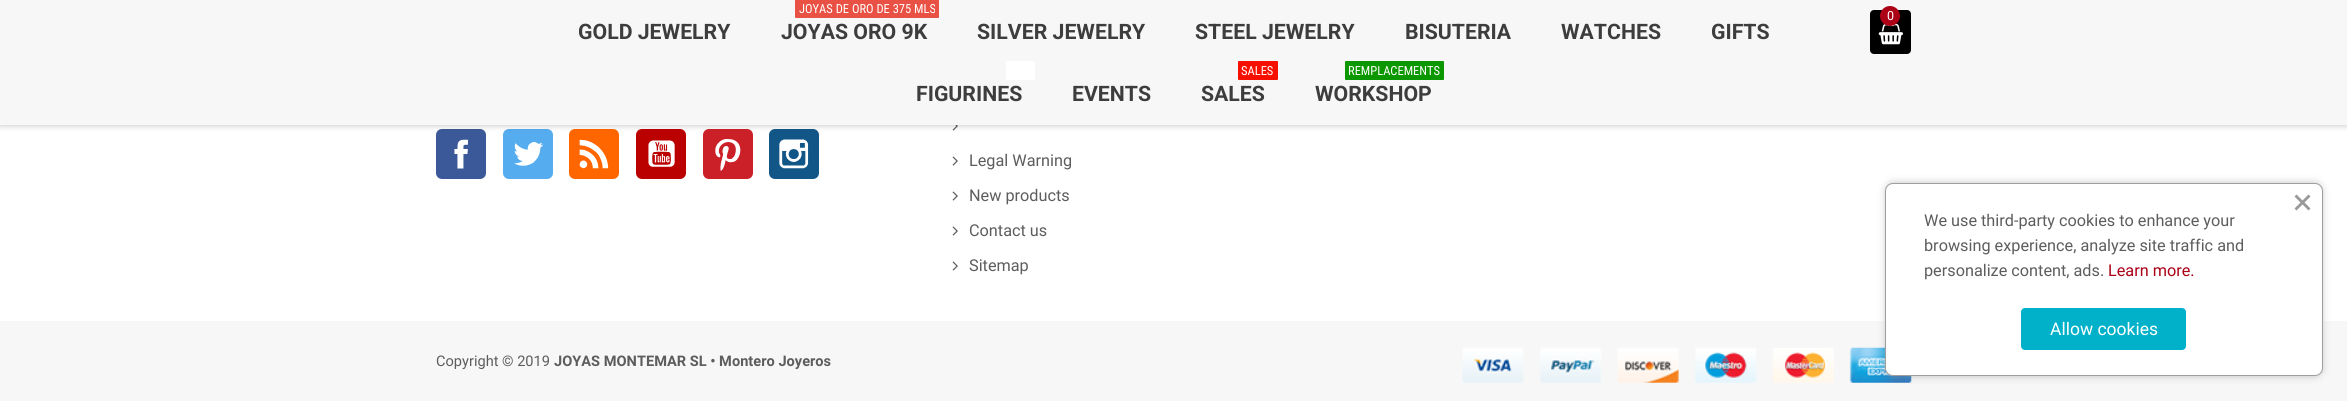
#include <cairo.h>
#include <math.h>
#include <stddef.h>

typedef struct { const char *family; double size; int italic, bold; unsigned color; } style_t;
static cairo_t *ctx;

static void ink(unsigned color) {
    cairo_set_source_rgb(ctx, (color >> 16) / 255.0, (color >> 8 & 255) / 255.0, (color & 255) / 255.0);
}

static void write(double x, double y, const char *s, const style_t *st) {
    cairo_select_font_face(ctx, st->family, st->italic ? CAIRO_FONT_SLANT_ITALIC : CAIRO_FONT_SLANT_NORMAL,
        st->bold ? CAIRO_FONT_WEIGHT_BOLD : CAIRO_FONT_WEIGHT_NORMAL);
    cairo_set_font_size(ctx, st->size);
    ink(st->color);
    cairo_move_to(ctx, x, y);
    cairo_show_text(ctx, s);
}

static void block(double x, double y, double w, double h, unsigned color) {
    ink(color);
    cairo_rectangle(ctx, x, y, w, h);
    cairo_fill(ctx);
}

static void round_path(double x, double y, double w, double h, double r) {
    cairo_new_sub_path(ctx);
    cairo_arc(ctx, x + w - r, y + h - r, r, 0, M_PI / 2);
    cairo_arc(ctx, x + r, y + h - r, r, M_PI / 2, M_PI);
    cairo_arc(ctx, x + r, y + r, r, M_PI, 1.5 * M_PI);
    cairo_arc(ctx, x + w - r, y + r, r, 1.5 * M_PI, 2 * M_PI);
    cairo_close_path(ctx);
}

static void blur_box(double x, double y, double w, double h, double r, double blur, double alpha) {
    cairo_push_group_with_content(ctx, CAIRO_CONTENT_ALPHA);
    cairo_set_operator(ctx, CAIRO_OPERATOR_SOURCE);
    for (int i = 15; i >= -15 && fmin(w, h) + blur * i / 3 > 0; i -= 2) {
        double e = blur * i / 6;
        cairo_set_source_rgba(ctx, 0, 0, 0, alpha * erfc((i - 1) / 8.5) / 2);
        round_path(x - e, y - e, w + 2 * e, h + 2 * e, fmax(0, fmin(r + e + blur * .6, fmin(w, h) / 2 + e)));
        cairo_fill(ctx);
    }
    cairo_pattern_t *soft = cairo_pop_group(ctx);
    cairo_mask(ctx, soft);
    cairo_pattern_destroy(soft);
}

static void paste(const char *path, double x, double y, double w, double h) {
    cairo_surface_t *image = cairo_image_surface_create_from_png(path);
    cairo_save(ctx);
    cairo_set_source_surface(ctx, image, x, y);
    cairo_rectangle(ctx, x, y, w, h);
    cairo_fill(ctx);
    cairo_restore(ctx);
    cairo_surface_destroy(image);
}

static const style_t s1 = {"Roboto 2", 21.25, 0, 1, 0x3d3d3d};
static const style_t s2 = {"Roboto Condensed", 12.5, 0, 0, 0xffffff};
static const style_t s3 = {"Roboto", 12.5, 0, 0, 0xffffff};
static const style_t s4 = {"Roboto", 16.25, 0, 0, 0x5d5d5d};
static const style_t s5 = {"Roboto", 14.6, 0, 0, 0x5d5d5d};
static const style_t s6 = {"Roboto", 14.6, 0, 1, 0x5d5d5d};
static const style_t s7 = {"Roboto", 16.25, 0, 0, 0xab0016};
static const style_t s8 = {"Roboto", 17.5, 0, 0, 0xffffff};

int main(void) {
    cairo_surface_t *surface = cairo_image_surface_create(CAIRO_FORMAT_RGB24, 2347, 401);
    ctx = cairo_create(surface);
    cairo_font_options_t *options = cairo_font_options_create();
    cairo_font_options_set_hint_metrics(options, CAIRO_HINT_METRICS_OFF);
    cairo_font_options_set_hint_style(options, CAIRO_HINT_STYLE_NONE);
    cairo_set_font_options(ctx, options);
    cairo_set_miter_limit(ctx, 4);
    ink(0xffffff);
    cairo_paint(ctx);
    ink(0x3b5998);
    round_path(436, 129, 50, 50, 6);
    cairo_fill(ctx);
    ink(0x55acee);
    round_path(503, 129, 50, 50, 6);
    cairo_fill(ctx);
    ink(0xff6600);
    round_path(569, 129, 50, 50, 6);
    cairo_fill(ctx);
    ink(0xbb0000);
    round_path(636, 129, 50, 50, 6);
    cairo_fill(ctx);
    ink(0xcb2027);
    round_path(703, 129, 50, 50, 6);
    cairo_fill(ctx);
    ink(0x125688);
    round_path(769, 129, 50, 50, 6);
    cairo_fill(ctx);
    paste("pic8.png", 952, 125, 6, 6);
    ink(0x000000);
    blur_box(0, 1, 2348, 125, 0, 3, 0.2);
    block(0, 0, 2347, 125, 0xf7f7f7);
    write(578, 39, "GOLD JEWELRY", &s1);
    ink(0xe95144);
    round_path(795, -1, 144, 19, 1);
    cairo_fill(ctx);
    write(799, 13, "JOYAS DE ORO DE 375 MLS", &s2);
    write(781, 39, "JOYAS ORO 9K", &s1);
    write(977, 39, "SILVER JEWELRY", &s1);
    write(1195, 39, "STEEL JEWELRY", &s1);
    write(1405, 39, "BISUTERIA", &s1);
    write(1561, 39, "WATCHES", &s1);
    write(1711, 39, "GIFTS", &s1);
    ink(0xffffff);
    round_path(1006, 61, 29, 19, 1);
    cairo_fill(ctx);
    write(916, 101, "FIGURINES", &s1);
    write(1072, 101, "EVENTS", &s1);
    ink(0xf71000);
    round_path(1238, 61, 40, 19, 1);
    cairo_fill(ctx);
    write(1241, 75, "SALES", &s2);
    write(1201, 101, "SALES", &s1);
    ink(0x0a9700);
    round_path(1345, 61, 99, 19, 1);
    cairo_fill(ctx);
    write(1348, 75, "REMPLACEMENTS", &s2);
    write(1315, 101, "WORKSHOP", &s1);
    ink(0x000000);
    round_path(1870, 10, 41, 44, 4);
    cairo_fill(ctx);
    paste("pic1.png", 1878, 23, 25, 22);
    ink(0xab0016);
    cairo_arc(ctx, 1890, 16, 10, 0, 2 * M_PI);
    cairo_fill(ctx);
    write(1887, 20, "0", &s3);
    paste("pic2.png", 454, 139, 14, 30);
    paste("pic3.png", 514, 142, 30, 24);
    paste("pic4.png", 579, 139, 30, 30);
    paste("pic5.png", 648, 140, 27, 27);
    paste("pic6.png", 715, 139, 26, 32);
    paste("pic7.png", 779, 139, 30, 30);
    paste("pic9.png", 952, 156, 6, 10);
    write(969, 166, "Legal Warning", &s4);
    paste("pic9.png", 952, 191, 6, 10);
    write(969, 201, "New products", &s4);
    paste("pic9.png", 952, 226, 6, 10);
    write(969, 236, "Contact us", &s4);
    paste("pic9.png", 952, 261, 6, 10);
    write(969, 271, "Sitemap", &s4);
    block(0, 321, 2347, 80, 0xf7f7f7);
    write(436, 366, "Copyright © 2019", &s5);
    write(554, 366, "JOYAS MONTEMAR SL • Montero Joyeros", &s6);
    paste("pic10.png", 1462, 347, 450, 36);
    ink(0x9e9e9e);
    blur_box(1888, 185, 432, 189, 5, 4.5, 1);
    ink(0xffffff);
    round_path(1885.5, 183.5, 437, 192, 7.5);
    cairo_fill_preserve(ctx);
    ink(0x9e9e9e);
    cairo_set_line_width(ctx, 1);
    cairo_stroke(ctx);
    ink(0x999999);
    cairo_new_path(ctx);
    cairo_move_to(ctx, 2294.5, 208.5);
    cairo_line_to(ctx, 2308.5, 194.5);
    cairo_line_to(ctx, 2310.5, 196.5);
    cairo_line_to(ctx, 2296.5, 210.5);
    cairo_close_path(ctx);
    cairo_fill(ctx);
    cairo_new_path(ctx);
    cairo_move_to(ctx, 2296.5, 194.5);
    cairo_line_to(ctx, 2310.5, 208.5);
    cairo_line_to(ctx, 2308.5, 210.5);
    cairo_line_to(ctx, 2294.5, 196.5);
    cairo_close_path(ctx);
    cairo_fill(ctx);
    write(1924, 226, "We use third-party cookies to enhance your", &s4);
    write(1924, 251, "browsing experience, analyze site traffic and", &s4);
    write(1924, 276, "personalize content, ads.", &s4);
    write(2108, 276, "Learn more.", &s7);
    ink(0x00b1c9);
    round_path(2021, 308, 165, 42, 4);
    cairo_fill(ctx);
    write(2050, 335, "Allow cookies", &s8);
    cairo_surface_write_to_png(surface, "screenshot.png");
    cairo_font_options_destroy(options);
    cairo_destroy(ctx);
    cairo_surface_destroy(surface);
    return 0;
}
